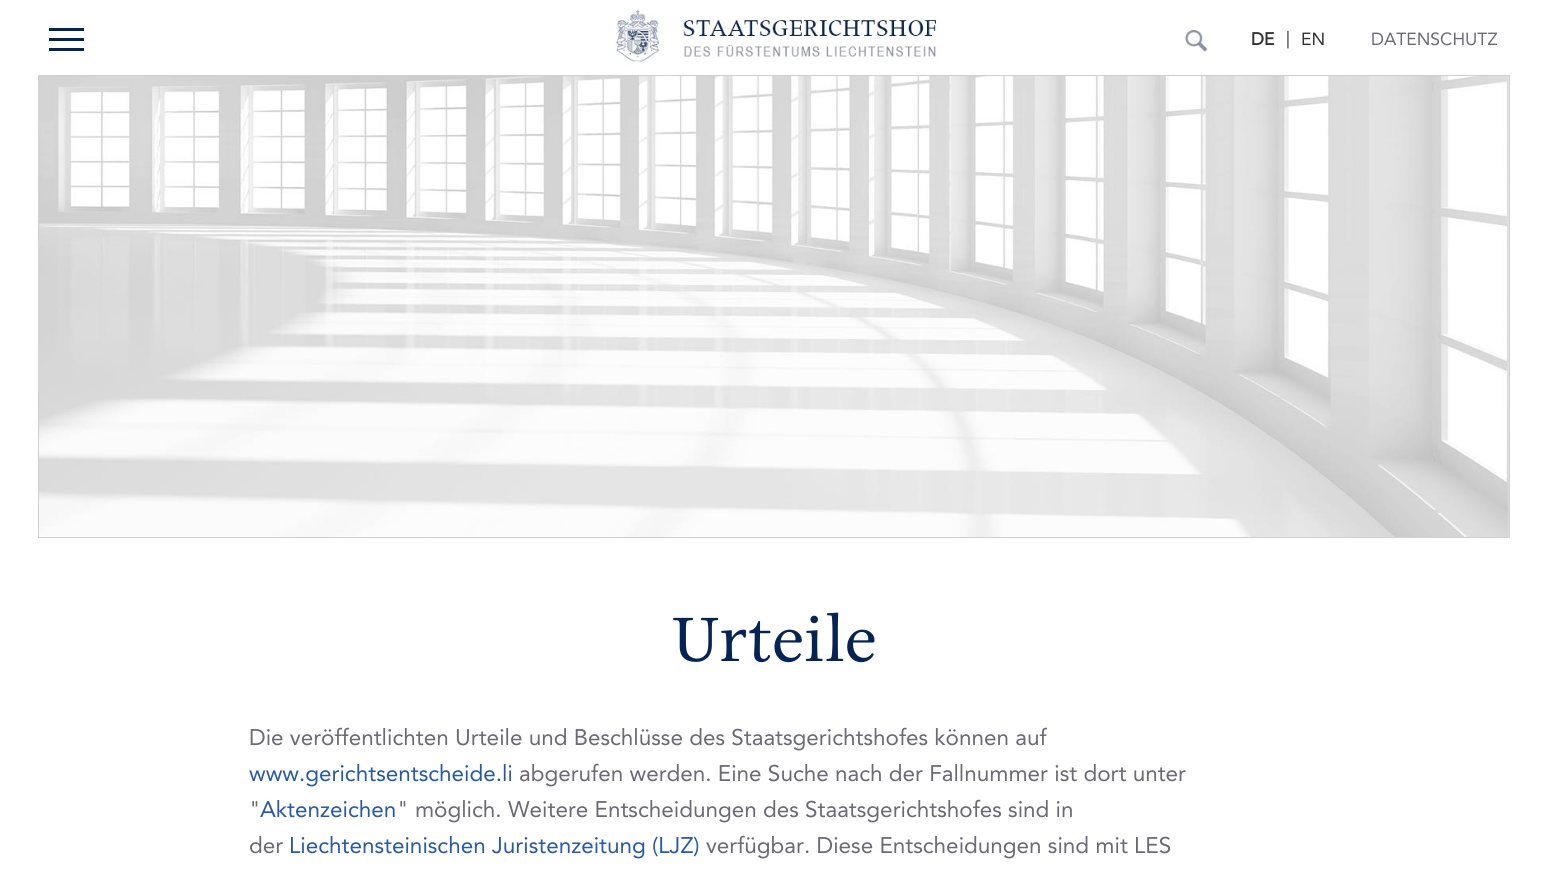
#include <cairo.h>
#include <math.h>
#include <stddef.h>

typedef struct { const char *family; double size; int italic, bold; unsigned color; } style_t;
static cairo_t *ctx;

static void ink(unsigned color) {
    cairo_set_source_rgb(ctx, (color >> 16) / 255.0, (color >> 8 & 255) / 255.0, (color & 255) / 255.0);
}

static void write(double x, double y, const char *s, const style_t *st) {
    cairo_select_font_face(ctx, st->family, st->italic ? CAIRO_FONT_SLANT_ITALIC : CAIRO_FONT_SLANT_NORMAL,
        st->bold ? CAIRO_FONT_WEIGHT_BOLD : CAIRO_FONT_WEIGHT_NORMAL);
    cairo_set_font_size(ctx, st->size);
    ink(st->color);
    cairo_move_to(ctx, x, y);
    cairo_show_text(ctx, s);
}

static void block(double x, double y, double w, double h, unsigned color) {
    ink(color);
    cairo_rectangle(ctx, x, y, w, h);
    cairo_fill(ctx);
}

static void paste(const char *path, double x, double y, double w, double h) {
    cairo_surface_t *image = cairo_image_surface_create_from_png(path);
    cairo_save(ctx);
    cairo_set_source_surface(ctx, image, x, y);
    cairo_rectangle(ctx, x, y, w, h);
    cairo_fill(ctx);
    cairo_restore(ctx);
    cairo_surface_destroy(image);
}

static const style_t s1 = {"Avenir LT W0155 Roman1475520", 17.5, 0, 1, 0x313131};
static const style_t s2 = {"Avenir LT W0155 Roman1475520", 17.5, 0, 0, 0x313131};
static const style_t s3 = {"Avenir LT W0155 Roman1475520", 17.5, 0, 0, 0x6b6976};
static const style_t s4 = {"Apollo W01", 75, 0, 0, 0x052453};
static const style_t s5 = {"Avenir LT W0155 Roman1475520", 22.5, 0, 0, 0x6b6976};
static const style_t s6 = {"Avenir LT W0155 Roman1475520", 22.5, 0, 0, 0x2759a6};

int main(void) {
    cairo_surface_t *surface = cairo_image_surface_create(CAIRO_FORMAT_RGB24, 1547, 883);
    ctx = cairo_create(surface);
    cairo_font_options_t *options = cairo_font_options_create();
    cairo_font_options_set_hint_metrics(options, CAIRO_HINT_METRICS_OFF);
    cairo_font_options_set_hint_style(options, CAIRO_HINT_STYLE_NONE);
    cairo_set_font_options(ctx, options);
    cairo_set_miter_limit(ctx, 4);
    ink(0xffffff);
    cairo_paint(ctx);
    block(49, 38, 35, 3, 0x052453);
    block(49, 28, 35, 3, 0x052453);
    block(49, 48, 35, 3, 0x052453);
    paste("pic1.png", 613, 8, 332, 57);
    paste("pic2.png", 1185, 30, 23, 22);
    write(1251, 45, "DE", &s1);
    write(1286, 44, "|", &s2);
    write(1301, 45, "EN", &s2);
    write(1371, 45, "DATENSCHUTZ", &s3);
    paste("pic3.png", 39, 76, 1470, 461);
    cairo_rectangle(ctx, 38.5, 75.5, 1471, 462);
    ink(0xcfcfd7);
    cairo_set_line_width(ctx, 1);
    cairo_stroke(ctx);
    write(671, 661, "Urteile", &s4);
    write(249, 745, "Die veröffentlichten Urteile und Beschlüsse des Staatsgerichtshofes können auf", &s5);
    write(249, 781, "www.gerichtsentscheide.li", &s6);
    write(519, 781, "abgerufen werden. Eine Suche nach der Fallnummer ist dort unter", &s5);
    write(249, 817, "\"", &s5);
    write(260, 817, "Aktenzeichen", &s6);
    write(397, 817, "\" möglich. Weitere Entscheidungen des Staatsgerichtshofes sind in", &s5);
    write(249, 853, "der", &s5);
    write(289, 853, "Liechtensteinischen Juristenzeitung (LJZ)", &s6);
    write(706, 853, "verfügbar. Diese Entscheidungen sind mit LES", &s5);
    cairo_surface_write_to_png(surface, "screenshot.png");
    cairo_font_options_destroy(options);
    cairo_destroy(ctx);
    cairo_surface_destroy(surface);
    return 0;
}
